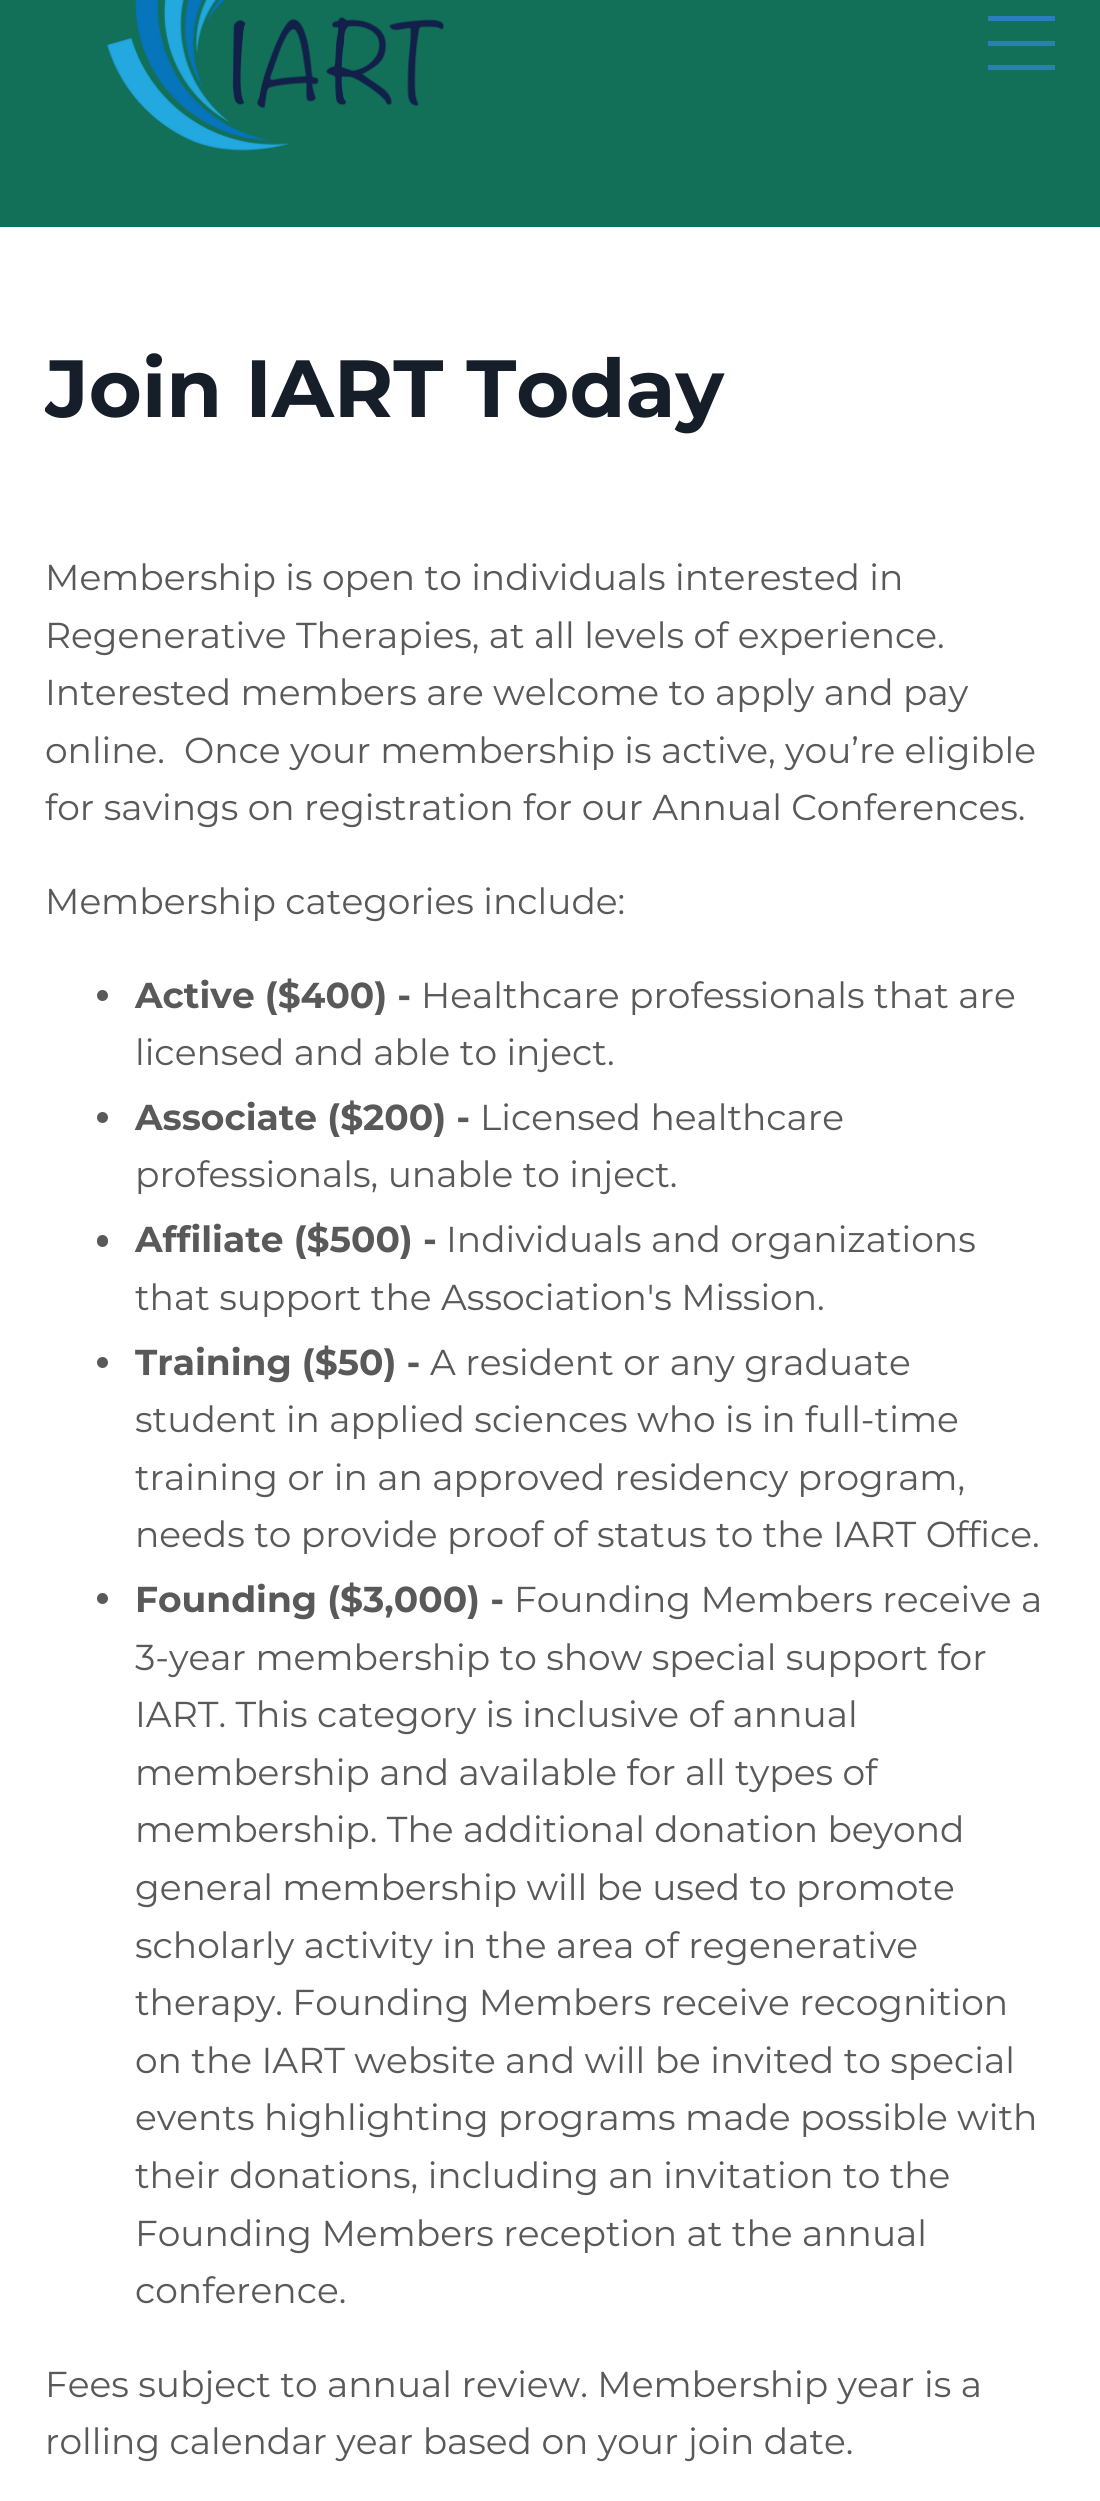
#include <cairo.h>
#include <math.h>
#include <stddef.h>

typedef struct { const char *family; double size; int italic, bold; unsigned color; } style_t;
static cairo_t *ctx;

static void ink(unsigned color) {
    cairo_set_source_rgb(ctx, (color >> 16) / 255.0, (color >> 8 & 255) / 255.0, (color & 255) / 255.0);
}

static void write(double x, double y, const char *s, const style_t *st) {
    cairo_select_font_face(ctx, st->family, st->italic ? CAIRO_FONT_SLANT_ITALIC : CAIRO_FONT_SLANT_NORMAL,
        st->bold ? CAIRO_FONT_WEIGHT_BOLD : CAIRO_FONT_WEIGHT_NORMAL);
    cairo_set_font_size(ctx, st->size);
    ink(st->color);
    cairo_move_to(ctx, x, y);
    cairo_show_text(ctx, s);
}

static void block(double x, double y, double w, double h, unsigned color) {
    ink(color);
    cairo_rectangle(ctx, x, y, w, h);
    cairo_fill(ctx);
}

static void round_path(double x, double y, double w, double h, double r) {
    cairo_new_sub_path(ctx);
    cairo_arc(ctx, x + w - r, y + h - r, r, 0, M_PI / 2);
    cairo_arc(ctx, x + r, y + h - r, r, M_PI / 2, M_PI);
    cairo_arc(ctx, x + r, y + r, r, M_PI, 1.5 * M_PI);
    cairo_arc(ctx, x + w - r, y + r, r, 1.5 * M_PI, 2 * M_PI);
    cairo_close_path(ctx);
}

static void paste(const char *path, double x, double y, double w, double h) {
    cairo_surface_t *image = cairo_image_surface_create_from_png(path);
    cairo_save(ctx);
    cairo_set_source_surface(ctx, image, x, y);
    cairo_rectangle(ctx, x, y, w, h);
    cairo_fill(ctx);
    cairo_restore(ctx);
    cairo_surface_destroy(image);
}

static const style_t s1 = {"Montserrat", 81, 0, 1, 0x161e2a};
static const style_t s2 = {"Montserrat", 36, 0, 0, 0x595959};
static const style_t s3 = {"Montserrat", 36, 0, 1, 0x595959};

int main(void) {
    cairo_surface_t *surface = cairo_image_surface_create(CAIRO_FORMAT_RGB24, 1100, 2501);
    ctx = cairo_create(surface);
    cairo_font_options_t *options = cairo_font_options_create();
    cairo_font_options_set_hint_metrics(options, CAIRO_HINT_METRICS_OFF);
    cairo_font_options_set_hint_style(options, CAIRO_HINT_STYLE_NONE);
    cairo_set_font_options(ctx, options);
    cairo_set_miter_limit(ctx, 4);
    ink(0xffffff);
    cairo_paint(ctx);
    block(0, 0, 1100, 227, 0x127059);
    paste("pic1.png", 107, 0, 337, 151);
    block(988, 16, 67, 5, 0x2980b9);
    block(988, 41, 67, 5, 0x2980b9);
    block(988, 65, 67, 5, 0x2980b9);
    cairo_save(ctx);
    round_path(45, 340, 1010, 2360, 9);
    cairo_clip(ctx);
    write(45, 417, "Join IART Today", &s1);
    cairo_restore(ctx);
    write(45, 590, "Membership is open to individuals interested in", &s2);
    write(45, 648, "Regenerative Therapies, at all levels of experience.", &s2);
    write(45, 705, "Interested members are welcome to apply and pay", &s2);
    write(45, 763, "online.", &s2);
    write(184, 763, "Once your membership is active, you’re eligible", &s2);
    write(45, 820, "for savings on registration for our Annual Conferences.", &s2);
    write(45, 914, "Membership categories include:", &s2);
    cairo_new_path(ctx);
    cairo_arc(ctx, 102.5, 995.5, 5.5, 0, 2 * M_PI);
    cairo_fill(ctx);
    write(135, 1008, "Active ($400) -", &s3);
    write(421, 1008, "Healthcare professionals that are", &s2);
    write(135, 1065, "licensed and able to inject.", &s2);
    cairo_new_path(ctx);
    cairo_arc(ctx, 102.5, 1117.5, 5.5, 0, 2 * M_PI);
    cairo_fill(ctx);
    write(135, 1130, "Associate ($200) -", &s3);
    write(480, 1130, "Licensed healthcare", &s2);
    write(135, 1187, "professionals, unable to inject.", &s2);
    round_path(97, 1235, 11, 12, 5.5);
    cairo_fill(ctx);
    write(135, 1252, "Affiliate ($500) -", &s3);
    write(446, 1252, "Individuals and organizations", &s2);
    write(135, 1310, "that support the Association's Mission.", &s2);
    cairo_new_path(ctx);
    cairo_arc(ctx, 102.5, 1362.5, 5.5, 0, 2 * M_PI);
    cairo_fill(ctx);
    write(135, 1375, "Training ($50) -", &s3);
    write(430, 1375, "A resident or any graduate", &s2);
    write(135, 1432, "student in applied sciences who is in full-time", &s2);
    write(135, 1490, "training or in an approved residency program,", &s2);
    write(135, 1547, "needs to provide proof of status to the IART Office.", &s2);
    cairo_new_path(ctx);
    cairo_arc(ctx, 102.5, 1598.5, 5.5, 0, 2 * M_PI);
    cairo_fill(ctx);
    write(135, 1612, "Founding ($3,000) -", &s3);
    write(514, 1612, "Founding Members receive a", &s2);
    write(135, 1670, "3-year membership to show special support for", &s2);
    write(135, 1727, "IART. This category is inclusive of annual", &s2);
    write(135, 1785, "membership and available for all types of", &s2);
    write(135, 1842, "membership. The additional donation beyond", &s2);
    write(135, 1900, "general membership will be used to promote", &s2);
    write(135, 1958, "scholarly activity in the area of regenerative", &s2);
    write(135, 2015, "therapy. Founding Members receive recognition", &s2);
    write(135, 2073, "on the IART website and will be invited to special", &s2);
    write(135, 2130, "events highlighting programs made possible with", &s2);
    write(135, 2188, "their donations, including an invitation to the", &s2);
    write(135, 2246, "Founding Members reception at the annual", &s2);
    write(135, 2303, "conference.", &s2);
    write(45, 2397, "Fees subject to annual review. Membership year is a", &s2);
    write(45, 2454, "rolling calendar year based on your join date.", &s2);
    cairo_surface_write_to_png(surface, "screenshot.png");
    cairo_font_options_destroy(options);
    cairo_destroy(ctx);
    cairo_surface_destroy(surface);
    return 0;
}
